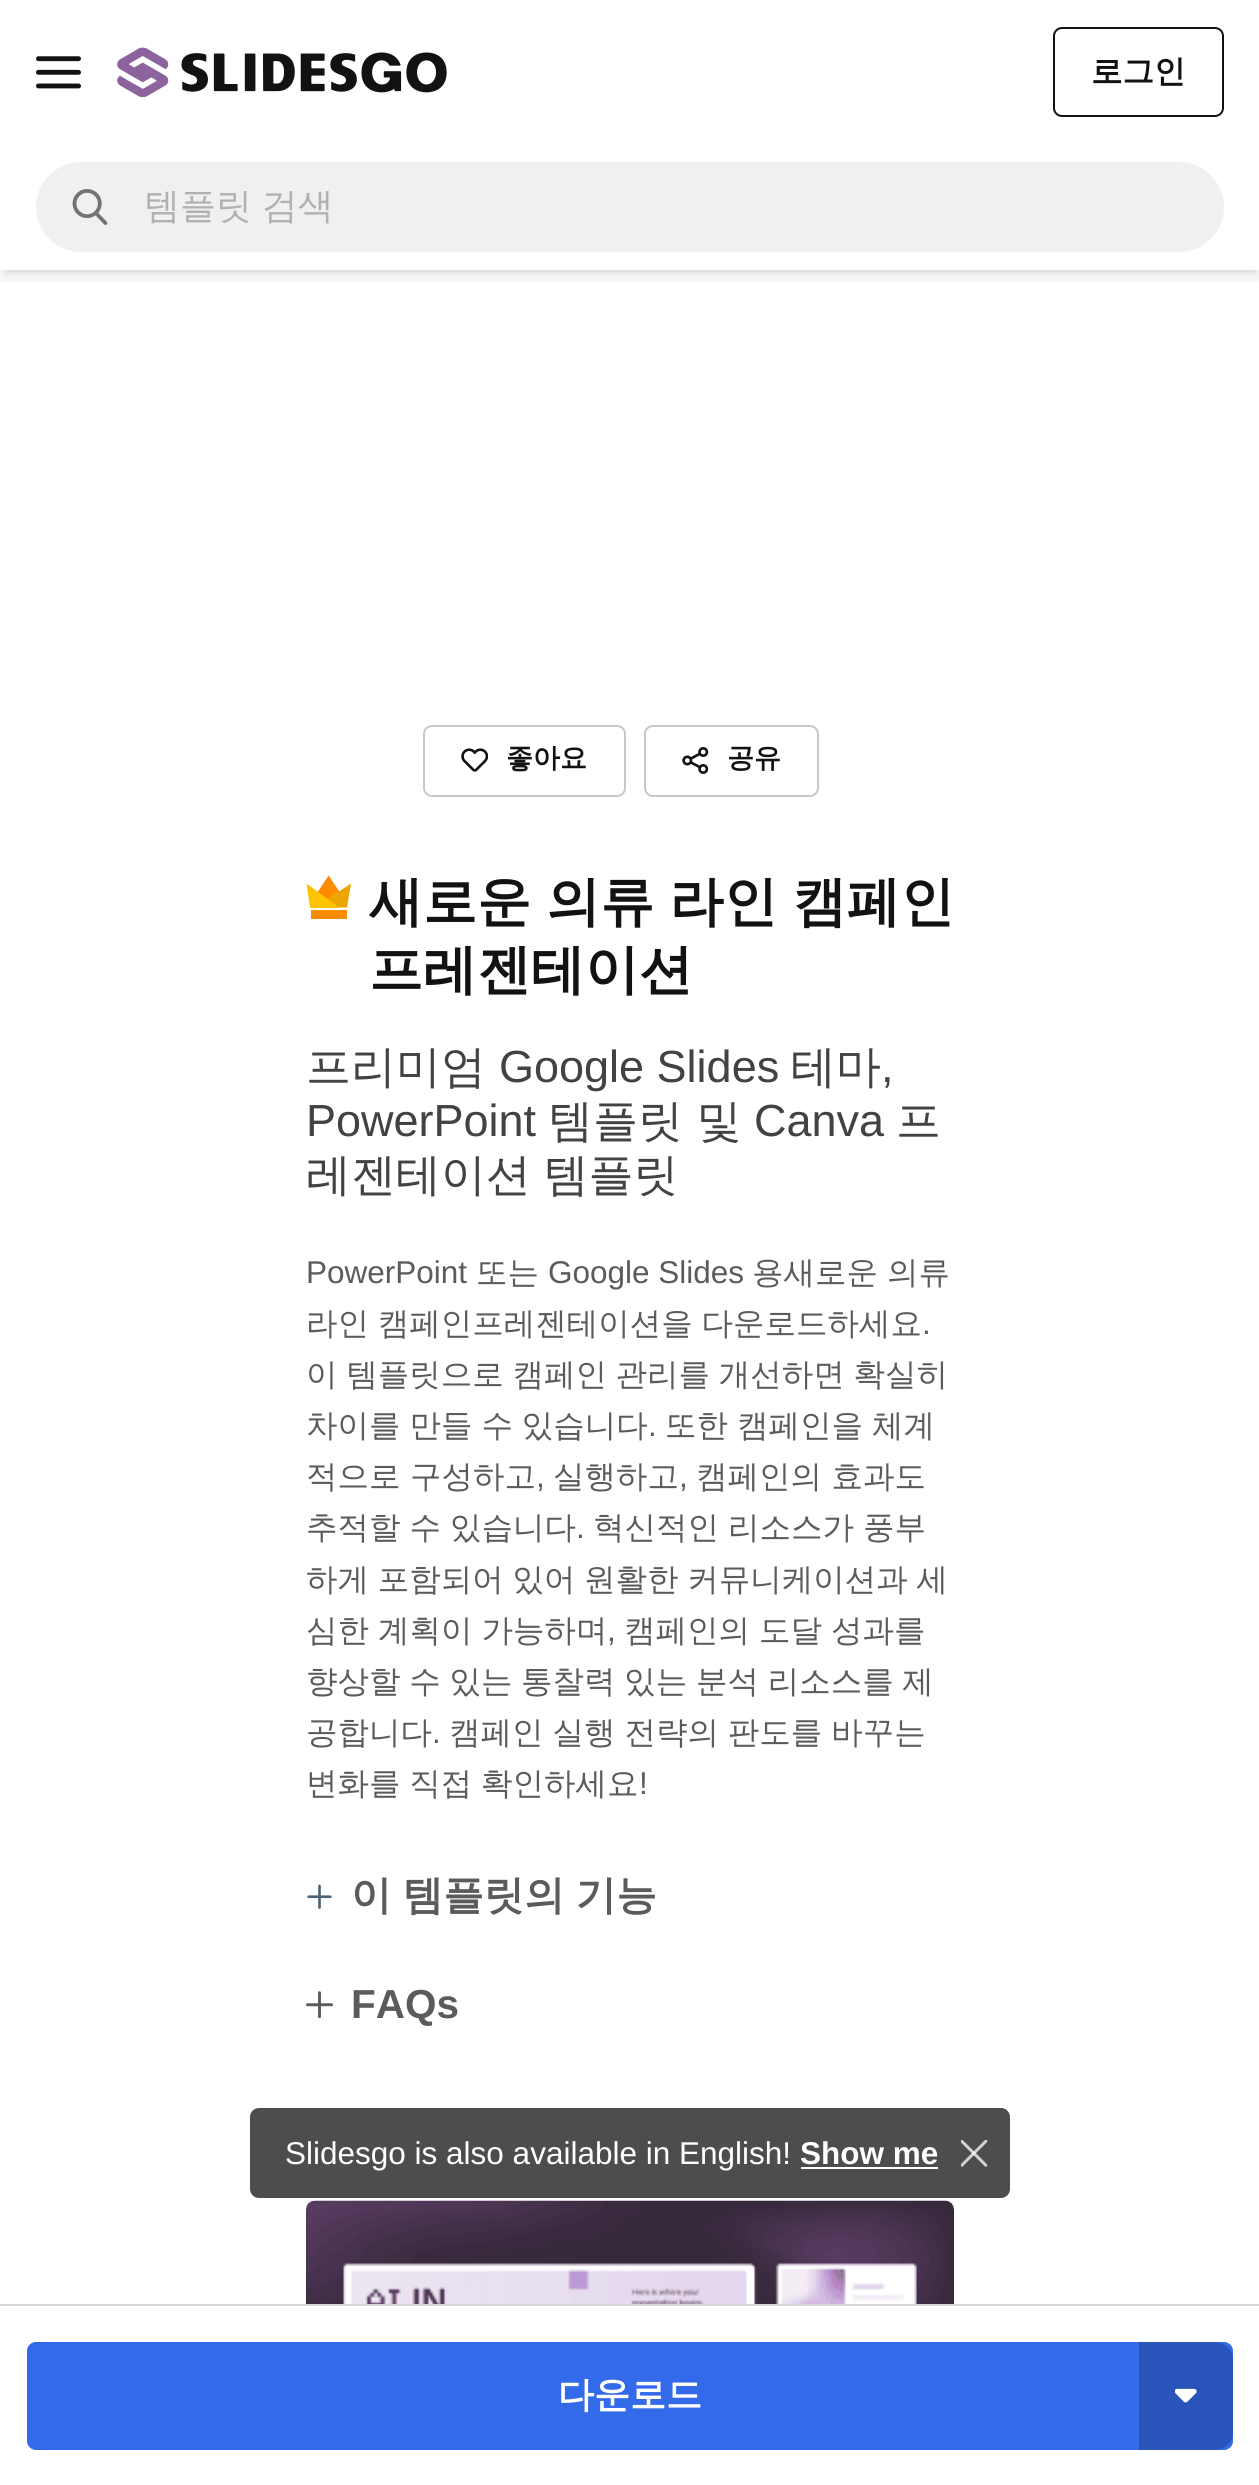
#include <cairo.h>
#include <math.h>
#include <stddef.h>

typedef struct { const char *family; double size; int italic, bold; unsigned color; } style_t;
static cairo_t *ctx;

static void ink(unsigned color) {
    cairo_set_source_rgb(ctx, (color >> 16) / 255.0, (color >> 8 & 255) / 255.0, (color & 255) / 255.0);
}

static void write(double x, double y, const char *s, const style_t *st) {
    cairo_select_font_face(ctx, st->family, st->italic ? CAIRO_FONT_SLANT_ITALIC : CAIRO_FONT_SLANT_NORMAL,
        st->bold ? CAIRO_FONT_WEIGHT_BOLD : CAIRO_FONT_WEIGHT_NORMAL);
    cairo_set_font_size(ctx, st->size);
    ink(st->color);
    cairo_move_to(ctx, x, y);
    cairo_show_text(ctx, s);
}

static void write_spaced(double x, double y, const char *s, double letter, double word) {
    cairo_move_to(ctx, x, y);
    while (*s) {
        char ch[5] = {0};
        int n = 0;
        do ch[n++] = *s++; while ((*s & 0xC0) == 0x80);
        cairo_show_text(ctx, ch);
        cairo_rel_move_to(ctx, letter + word * (*ch == ' '), 0);
    }
}

static void block(double x, double y, double w, double h, unsigned color) {
    ink(color);
    cairo_rectangle(ctx, x, y, w, h);
    cairo_fill(ctx);
}

static void round_path(double x, double y, double w, double h, double r) {
    cairo_new_sub_path(ctx);
    cairo_arc(ctx, x + w - r, y + h - r, r, 0, M_PI / 2);
    cairo_arc(ctx, x + r, y + h - r, r, M_PI / 2, M_PI);
    cairo_arc(ctx, x + r, y + r, r, M_PI, 1.5 * M_PI);
    cairo_arc(ctx, x + w - r, y + r, r, 1.5 * M_PI, 2 * M_PI);
    cairo_close_path(ctx);
}

static void blur_box(double x, double y, double w, double h, double r, double blur, double alpha) {
    cairo_push_group_with_content(ctx, CAIRO_CONTENT_ALPHA);
    cairo_set_operator(ctx, CAIRO_OPERATOR_SOURCE);
    for (int i = 15; i >= -15 && fmin(w, h) + blur * i / 3 > 0; i -= 2) {
        double e = blur * i / 6;
        cairo_set_source_rgba(ctx, 0, 0, 0, alpha * erfc((i - 1) / 8.5) / 2);
        round_path(x - e, y - e, w + 2 * e, h + 2 * e, fmax(0, fmin(r + e + blur * .6, fmin(w, h) / 2 + e)));
        cairo_fill(ctx);
    }
    cairo_pattern_t *soft = cairo_pop_group(ctx);
    cairo_mask(ctx, soft);
    cairo_pattern_destroy(soft);
}

static void paste(const char *path, double x, double y, double w, double h) {
    cairo_surface_t *image = cairo_image_surface_create_from_png(path);
    cairo_save(ctx);
    cairo_set_source_surface(ctx, image, x, y);
    cairo_rectangle(ctx, x, y, w, h);
    cairo_fill(ctx);
    cairo_restore(ctx);
    cairo_surface_destroy(image);
}

static const style_t s1 = {"WenQuanYi Zen Hei", 31.5, 0, 1, 0x121212};
static const style_t s2 = {"WenQuanYi Zen Hei", 27, 0, 1, 0x121212};
static const style_t s3 = {"WenQuanYi Zen Hei", 54, 0, 1, 0x121212};
static const style_t s4 = {"WenQuanYi Zen Hei Medium", 45, 0, 0, 0x424242};
static const style_t s5 = {"Liberation Sans", 45, 0, 0, 0x424242};
static const style_t s6 = {"Liberation Sans", 31.5, 0, 0, 0x5b5b5b};
static const style_t s7 = {"WenQuanYi Zen Hei Medium", 31.5, 0, 0, 0x5b5b5b};
static const style_t s8 = {"Liberation Sans", 40.5, 0, 1, 0x5b5b5b};
static const style_t s9 = {"WenQuanYi Zen Hei", 36, 0, 1, 0xffffff};
static const style_t s10 = {"Liberation Sans", 31.5, 0, 0, 0xffffff};
static const style_t s11 = {"Liberation Sans", 31.5, 0, 1, 0xffffff};

int main(void) {
    cairo_surface_t *surface = cairo_image_surface_create(CAIRO_FORMAT_RGB24, 1259, 2485);
    ctx = cairo_create(surface);
    cairo_font_options_t *options = cairo_font_options_create();
    cairo_font_options_set_hint_metrics(options, CAIRO_HINT_METRICS_OFF);
    cairo_font_options_set_hint_style(options, CAIRO_HINT_STYLE_NONE);
    cairo_set_font_options(ctx, options);
    cairo_set_miter_limit(ctx, 4);
    ink(0xffffff);
    cairo_paint(ctx);
    paste("pic1.png", 36, 56, 45, 33);
    paste("pic2.png", 117, 47, 330, 50);
    round_path(1054, 28, 169, 88, 8);
    ink(0x121212);
    cairo_stroke(ctx);
    write(1091, 82, "로그인", &s1);
    cairo_save(ctx);
    cairo_rectangle(ctx, 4, 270, 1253, 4);
    cairo_clip(ctx);
    ink(0x000000);
    blur_box(5, 153, 1251, 117, 0, 4.5, 0.1);
    cairo_restore(ctx);
    cairo_save(ctx);
    cairo_rectangle(ctx, 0, 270, 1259, 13);
    cairo_clip(ctx);
    ink(0x000000);
    blur_box(2, 155, 1256, 122, 0, 7, 0.1);
    cairo_restore(ctx);
    ink(0xf0f0f0);
    round_path(36, 162, 1188, 90, 45);
    cairo_fill(ctx);
    paste("pic3.png", 72, 189, 36, 36);
    cairo_select_font_face(ctx, "WenQuanYi Zen Hei Medium", CAIRO_FONT_SLANT_NORMAL, CAIRO_FONT_WEIGHT_NORMAL);
    cairo_set_font_size(ctx, 36);
    ink(0xb1b1b1);
    write_spaced(144, 218, "템플릿 검색", 0, -1);
    round_path(424, 726, 201, 70, 8);
    ink(0xc8c8c8);
    cairo_stroke(ctx);
    paste("pic4.png", 461, 748, 27, 24);
    write(506, 767, "좋아요", &s2);
    round_path(645, 726, 173, 70, 8);
    ink(0xc8c8c8);
    cairo_stroke(ctx);
    paste("pic5.png", 682, 747, 27, 27);
    write(727, 767, "공유", &s2);
    block(311, 910, 36, 9, 0xfa8c00);
    ink(0xff8c00);
    cairo_new_path(ctx);
    cairo_move_to(ctx, 310.5, 903);
    cairo_line_to(ctx, 328.5, 875.5);
    cairo_line_to(ctx, 347, 903);
    cairo_close_path(ctx);
    cairo_fill(ctx);
    ink(0xeda500);
    cairo_new_path(ctx);
    cairo_move_to(ctx, 347, 907.5);
    cairo_line_to(ctx, 351, 883.5);
    cairo_line_to(ctx, 315, 907);
    cairo_close_path(ctx);
    cairo_fill(ctx);
    ink(0xfec400);
    cairo_new_path(ctx);
    cairo_move_to(ctx, 310, 907.5);
    cairo_line_to(ctx, 306.5, 883.5);
    cairo_line_to(ctx, 340, 908);
    cairo_line_to(ctx, 310, 908);
    cairo_close_path(ctx);
    cairo_fill(ctx);
    cairo_set_font_size(ctx, 54);
    ink(0x121212);
    write_spaced(369, 920, "새로운 의류 라인 캠페인", 0, -1);
    write(369, 988, "프레젠테이션", &s3);
    write(306, 1082, "프리미엄", &s4);
    write(499, 1082, "Google Slides", &s5);
    write(791, 1082, "테마", &s4);
    write(881, 1082, ",", &s5);
    write(306, 1136, "PowerPoint", &s5);
    write(548, 1136, "템플릿 및", &s4);
    write(754, 1136, "Canva", &s5);
    write(896, 1136, "프", &s4);
    write_spaced(306, 1190, "레젠테이션 템플릿", 0, -1);
    write(306, 1283, "PowerPoint", &s6);
    write(476, 1283, "또는", &s7);
    write(548, 1283, "Google Slides", &s6);
    write(752, 1283, "용새로운", &s7);
    write(887, 1283, "의류", &s7);
    write_spaced(306, 1334, "라인 캠페인프레젠테이션을 다운로드하세요", 0, -0.75);
    write(922, 1334, ".", &s6);
    cairo_select_font_face(ctx, "WenQuanYi Zen Hei Medium", CAIRO_FONT_SLANT_NORMAL, CAIRO_FONT_WEIGHT_NORMAL);
    write_spaced(306, 1385, "이 템플릿으로 캠페인 관리를 개선하면 확실히", 0, -0.75);
    write_spaced(306, 1436, "차이를 만들 수 있습니다", 0, -0.5);
    write(648, 1436, ".", &s6);
    cairo_select_font_face(ctx, "WenQuanYi Zen Hei Medium", CAIRO_FONT_SLANT_NORMAL, CAIRO_FONT_WEIGHT_NORMAL);
    write_spaced(665, 1436, "또한 캠페인을 체계", 0, -0.5);
    write(306, 1487, "적으로 구성하고", &s7);
    write(536, 1487, ",", &s6);
    write(553, 1487, "실행하고", &s7);
    write(679, 1487, ",", &s6);
    write(696, 1487, "캠페인의 효과도", &s7);
    write_spaced(306, 1538, "추적할 수 있습니다", 0, -0.5);
    write(576, 1538, ".", &s6);
    cairo_select_font_face(ctx, "WenQuanYi Zen Hei Medium", CAIRO_FONT_SLANT_NORMAL, CAIRO_FONT_WEIGHT_NORMAL);
    write_spaced(593, 1538, "혁신적인 리소스가 풍부", 0, -0.5);
    write_spaced(306, 1590, "하게 포함되어 있어 원활한 커뮤니케이션과 세", 0, -0.75);
    write_spaced(306, 1641, "심한 계획이 가능하며", 0, -0.5);
    write(607, 1641, ",", &s6);
    cairo_select_font_face(ctx, "WenQuanYi Zen Hei Medium", CAIRO_FONT_SLANT_NORMAL, CAIRO_FONT_WEIGHT_NORMAL);
    write_spaced(624, 1641, "캠페인의 도달 성과를", 0, -0.5);
    write_spaced(306, 1692, "향상할 수 있는 통찰력 있는 분석 리소스를 제", 0, -0.75);
    write(306, 1743, "공합니다", &s7);
    write(432, 1743, ".", &s6);
    cairo_select_font_face(ctx, "WenQuanYi Zen Hei Medium", CAIRO_FONT_SLANT_NORMAL, CAIRO_FONT_WEIGHT_NORMAL);
    write_spaced(449, 1743, "캠페인 실행 전략의 판도를 바꾸는", 0, -0.5);
    write_spaced(306, 1794, "변화를 직접 확인하세요", 0, -0.75);
    write(639, 1794, "!", &s6);
    paste("pic6.png", 307, 1884, 25, 25);
    cairo_select_font_face(ctx, "WenQuanYi Zen Hei", CAIRO_FONT_SLANT_NORMAL, CAIRO_FONT_WEIGHT_BOLD);
    cairo_set_font_size(ctx, 40.5);
    write_spaced(351, 1909, "이 템플릿의 기능", 0, -1);
    paste("pic7.png", 306, 1991, 27, 27);
    write(351, 2018, "FAQs", &s8);
    paste("pic8.png", 306, 2200, 648, 104);
    cairo_set_source_rgba(ctx, 1, 1, 1, 0.05);
    cairo_rectangle(ctx, 306, 2201, 648, 103);
    cairo_fill(ctx);
    cairo_rectangle(ctx, 307, 2202, 646, 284);
    cairo_set_source_rgba(ctx, 0.133, 0.161, 0.184, 0.05);
    cairo_stroke(ctx);
    block(306, 2306, 648, 179, 0xffffff);
    block(0, 2304, 1259, 2, 0xd8d8d8);
    ink(0x336aea);
    round_path(27, 2342, 1206, 108, 9);
    cairo_fill(ctx);
    write(558, 2407, "다운로드", &s9);
    ink(0x2955bb);
    cairo_new_path(ctx);
    cairo_move_to(ctx, 1139, 2342);
    cairo_line_to(ctx, 1215, 2342);
    cairo_curve_to(ctx, 1225, 2342, 1233, 2350, 1233, 2360);
    cairo_line_to(ctx, 1233, 2432);
    cairo_curve_to(ctx, 1233, 2442, 1225, 2450, 1215, 2450);
    cairo_line_to(ctx, 1139, 2450);
    cairo_close_path(ctx);
    cairo_fill(ctx);
    paste("pic9.png", 1175, 2388, 22, 15);
    cairo_set_source_rgba(ctx, 0.071, 0.071, 0.071, 0.75);
    round_path(250, 2108, 760, 90, 9);
    cairo_fill(ctx);
    write(285, 2164, "Slidesgo is also available in English!", &s10);
    write(800, 2164, "Show me", &s11);
    block(801, 2167, 137, 2, 0xffffff);
    paste("pic10.png", 961, 2140, 27, 27);
    cairo_surface_write_to_png(surface, "screenshot.png");
    cairo_font_options_destroy(options);
    cairo_destroy(ctx);
    cairo_surface_destroy(surface);
    return 0;
}
